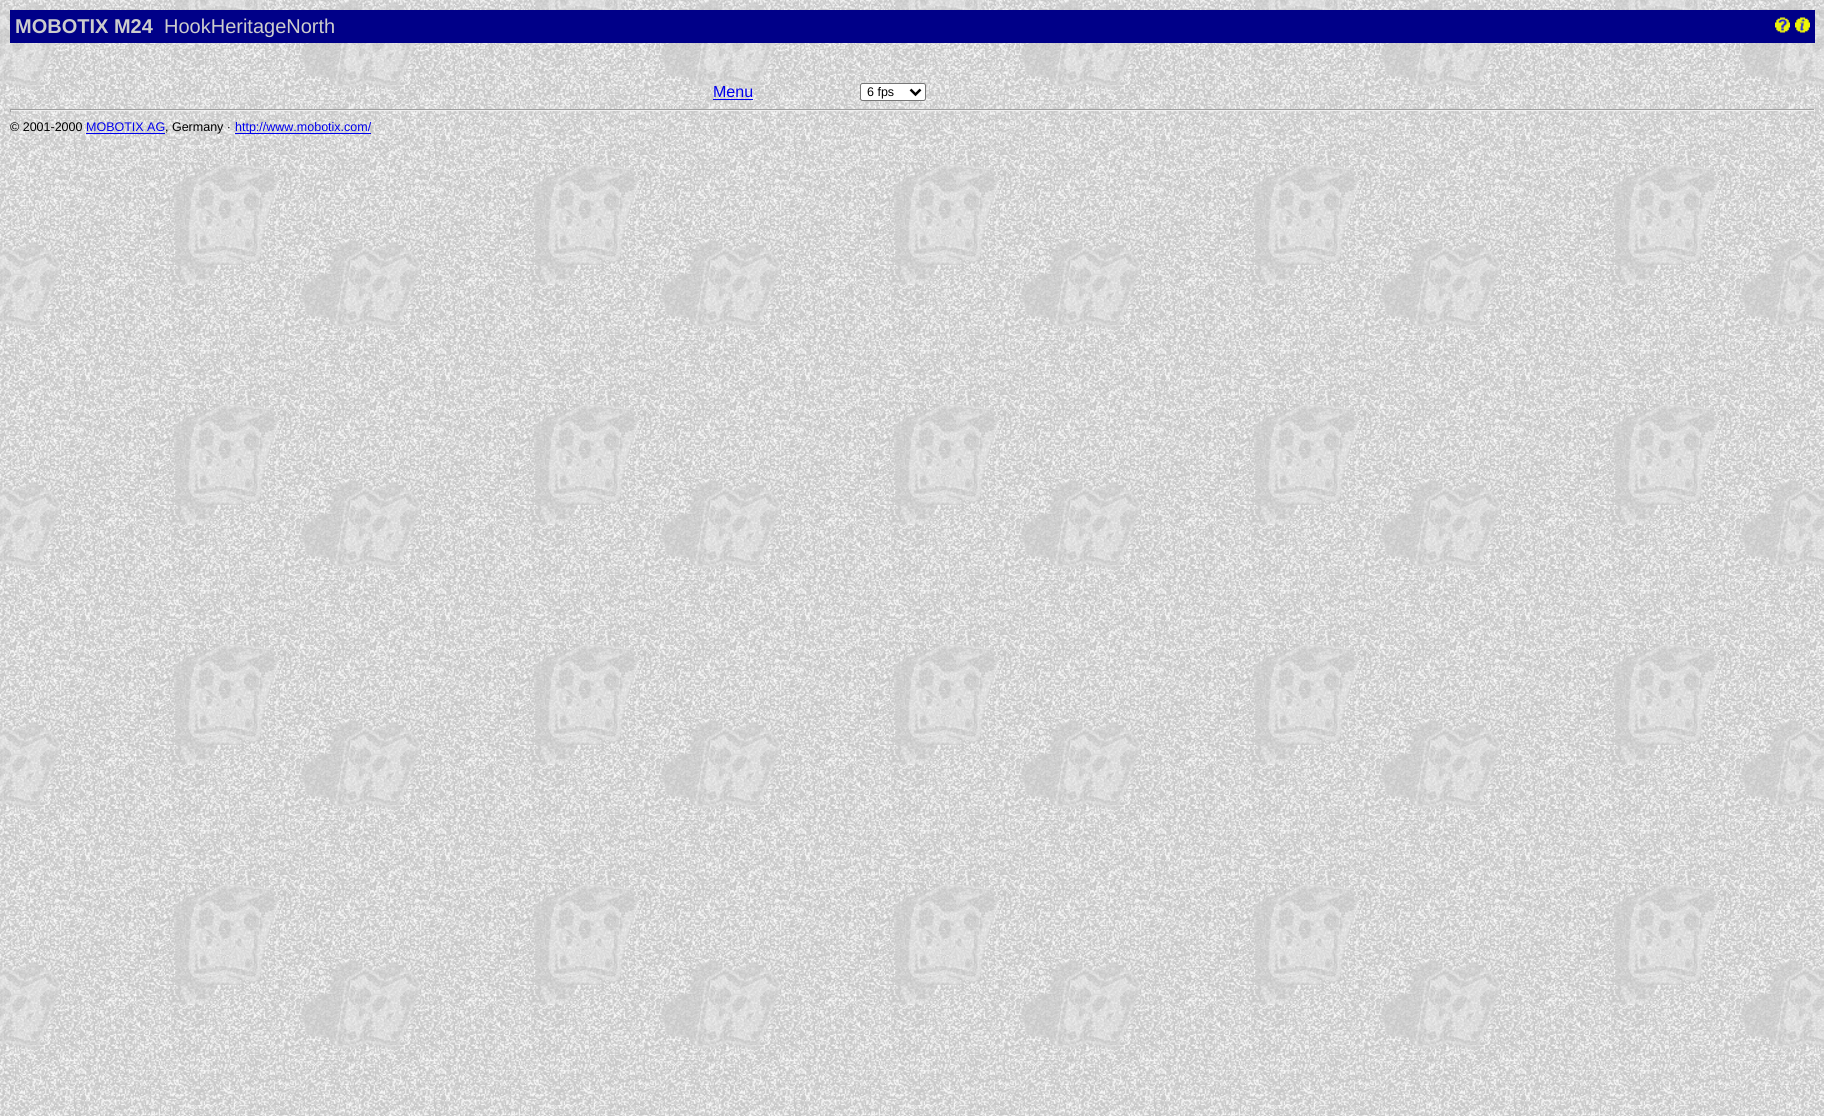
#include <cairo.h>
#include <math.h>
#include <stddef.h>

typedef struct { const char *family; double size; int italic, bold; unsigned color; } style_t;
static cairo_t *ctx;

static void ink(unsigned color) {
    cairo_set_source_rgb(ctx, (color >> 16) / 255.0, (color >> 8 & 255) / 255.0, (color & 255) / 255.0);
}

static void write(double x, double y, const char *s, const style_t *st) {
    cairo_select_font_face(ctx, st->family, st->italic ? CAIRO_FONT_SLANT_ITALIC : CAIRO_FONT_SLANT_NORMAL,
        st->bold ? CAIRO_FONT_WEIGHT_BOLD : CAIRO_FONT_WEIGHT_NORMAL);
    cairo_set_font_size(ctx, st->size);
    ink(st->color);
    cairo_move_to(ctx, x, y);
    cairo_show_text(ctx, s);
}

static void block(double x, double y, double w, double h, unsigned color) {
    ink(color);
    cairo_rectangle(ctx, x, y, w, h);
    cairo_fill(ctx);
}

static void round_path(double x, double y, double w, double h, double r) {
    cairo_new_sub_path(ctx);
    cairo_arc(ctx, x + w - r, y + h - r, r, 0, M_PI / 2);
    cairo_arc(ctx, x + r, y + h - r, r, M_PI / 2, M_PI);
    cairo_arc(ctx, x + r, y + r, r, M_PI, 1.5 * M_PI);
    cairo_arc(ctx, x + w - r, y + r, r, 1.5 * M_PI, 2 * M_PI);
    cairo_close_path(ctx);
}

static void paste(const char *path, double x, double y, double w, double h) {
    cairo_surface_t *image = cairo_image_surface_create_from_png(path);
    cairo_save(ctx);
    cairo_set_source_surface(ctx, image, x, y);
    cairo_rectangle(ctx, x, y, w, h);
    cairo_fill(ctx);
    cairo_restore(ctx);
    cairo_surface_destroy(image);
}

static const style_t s1 = {"Liberation Sans", 20, 0, 1, 0xcccccc};
static const style_t s2 = {"Liberation Sans", 20, 0, 0, 0xcccccc};
static const style_t s3 = {"Liberation Sans", 16, 0, 0, 0x0000ee};
static const style_t s4 = {"Liberation Sans", 12.5, 0, 0, 0x000000};
static const style_t s5 = {"Liberation Sans", 12.5, 0, 0, 0x0000ee};

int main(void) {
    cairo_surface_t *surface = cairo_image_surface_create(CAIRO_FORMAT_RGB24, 1824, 1116);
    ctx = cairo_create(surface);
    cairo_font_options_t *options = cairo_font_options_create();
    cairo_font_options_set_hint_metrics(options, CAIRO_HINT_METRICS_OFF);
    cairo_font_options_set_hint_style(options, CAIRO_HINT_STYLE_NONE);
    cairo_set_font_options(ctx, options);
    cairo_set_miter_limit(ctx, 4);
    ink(0xffffff);
    cairo_paint(ctx);
    paste("pic1.png", 0, 0, 1824, 1116);
    block(10, 10, 1805, 33, 0x000088);
    write(15, 33, "MOBOTIX M24", &s1);
    write(164, 33, "HookHeritageNorth", &s2);
    paste("pic2.png", 1775, 17, 15, 16);
    paste("pic3.png", 1795, 17, 15, 16);
    write(713, 97, "Menu", &s3);
    block(713, 99, 40, 1, 0x0000ee);
    ink(0xffffff);
    round_path(860.5, 83.5, 65, 17, 2);
    cairo_fill_preserve(ctx);
    ink(0x767676);
    cairo_set_line_width(ctx, 1);
    cairo_stroke(ctx);
    cairo_new_path(ctx);
    cairo_move_to(ctx, 910.5, 89.5);
    cairo_line_to(ctx, 915.5, 94.5);
    cairo_line_to(ctx, 920.5, 89.5);
    ink(0x000000);
    cairo_set_line_width(ctx, 2.5);
    cairo_stroke(ctx);
    write(867, 96, "6 fps", &s4);
    block(10, 109, 1805, 1, 0x9f9f9f);
    block(1814, 109, 1, 3, 0xeeeeee);
    block(10, 110, 1805, 1, 0xeeeeee);
    block(10, 109, 1, 3, 0x9f9f9f);
    write(10, 131, "© 2001-2000", &s4);
    write(86, 131, "MOBOTIX AG", &s5);
    write(165, 131, ", Germany ·", &s4);
    block(86, 133, 79, 1, 0x0000ee);
    block(235, 133, 136, 1, 0x0000ee);
    write(235, 131, "http://www.mobotix.com/", &s5);
    cairo_surface_write_to_png(surface, "screenshot.png");
    cairo_font_options_destroy(options);
    cairo_destroy(ctx);
    cairo_surface_destroy(surface);
    return 0;
}
